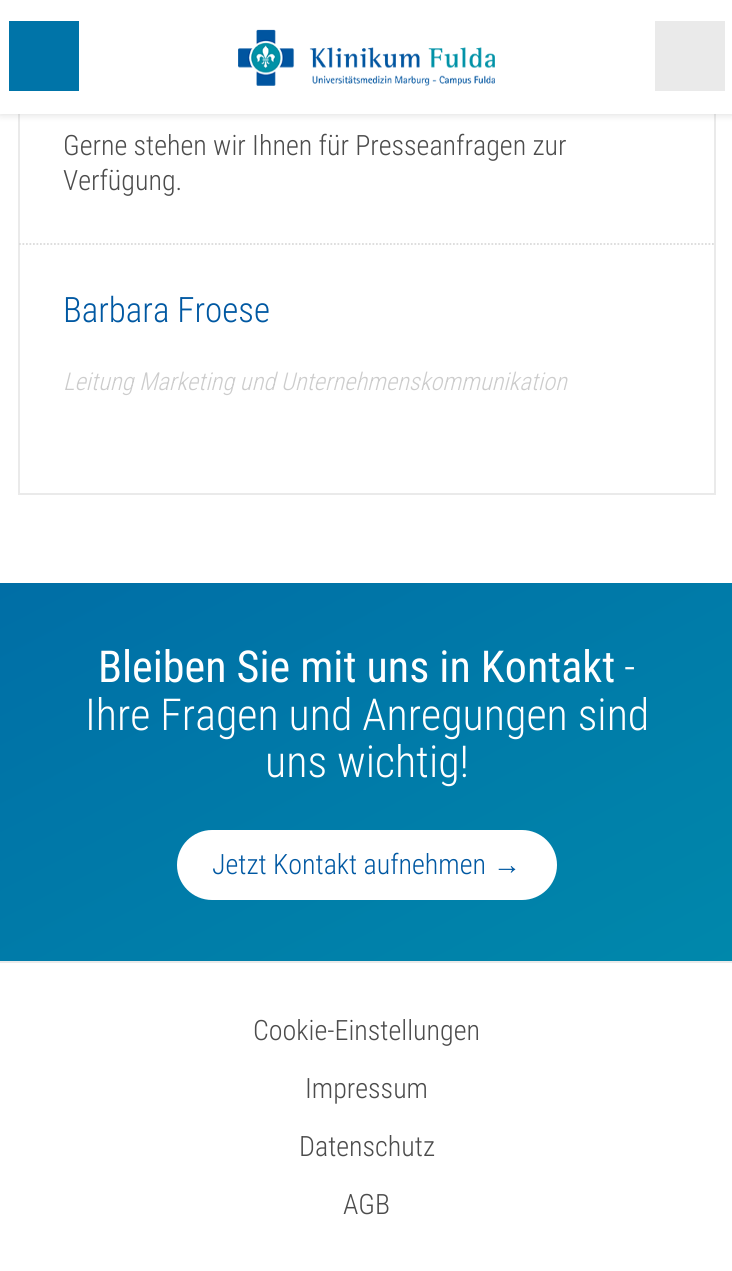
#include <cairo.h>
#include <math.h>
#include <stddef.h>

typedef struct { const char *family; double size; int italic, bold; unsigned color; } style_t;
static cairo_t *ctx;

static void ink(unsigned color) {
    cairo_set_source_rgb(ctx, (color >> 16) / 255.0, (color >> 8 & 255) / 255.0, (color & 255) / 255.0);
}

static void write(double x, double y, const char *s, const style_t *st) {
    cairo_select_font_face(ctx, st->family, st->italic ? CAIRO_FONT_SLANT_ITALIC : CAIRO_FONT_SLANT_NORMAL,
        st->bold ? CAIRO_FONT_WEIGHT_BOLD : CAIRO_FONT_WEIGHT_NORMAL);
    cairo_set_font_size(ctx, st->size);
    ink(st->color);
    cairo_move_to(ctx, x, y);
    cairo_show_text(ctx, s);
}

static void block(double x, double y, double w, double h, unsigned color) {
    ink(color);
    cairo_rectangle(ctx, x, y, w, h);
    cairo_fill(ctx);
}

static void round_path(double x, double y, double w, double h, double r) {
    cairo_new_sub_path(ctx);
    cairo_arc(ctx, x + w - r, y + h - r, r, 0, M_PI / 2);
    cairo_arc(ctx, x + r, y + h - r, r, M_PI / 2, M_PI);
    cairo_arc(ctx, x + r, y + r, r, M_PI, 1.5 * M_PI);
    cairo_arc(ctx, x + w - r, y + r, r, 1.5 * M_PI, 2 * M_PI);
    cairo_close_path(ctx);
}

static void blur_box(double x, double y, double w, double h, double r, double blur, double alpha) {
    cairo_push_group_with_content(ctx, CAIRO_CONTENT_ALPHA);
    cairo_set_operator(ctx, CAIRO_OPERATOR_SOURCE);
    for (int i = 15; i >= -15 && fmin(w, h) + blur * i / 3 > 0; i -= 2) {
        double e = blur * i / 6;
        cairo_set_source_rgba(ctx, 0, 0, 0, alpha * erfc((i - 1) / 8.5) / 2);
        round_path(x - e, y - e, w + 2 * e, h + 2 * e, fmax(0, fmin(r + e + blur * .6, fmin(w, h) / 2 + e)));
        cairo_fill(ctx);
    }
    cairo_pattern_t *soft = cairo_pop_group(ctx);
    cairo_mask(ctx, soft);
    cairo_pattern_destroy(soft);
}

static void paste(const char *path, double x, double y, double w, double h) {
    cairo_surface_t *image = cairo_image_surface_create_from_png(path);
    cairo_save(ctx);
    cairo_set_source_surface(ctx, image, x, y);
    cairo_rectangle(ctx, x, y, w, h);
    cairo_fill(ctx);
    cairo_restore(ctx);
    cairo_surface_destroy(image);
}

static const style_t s1 = {"Roboto Condensed Light", 28, 0, 0, 0x4c4c4c};
static const style_t s2 = {"Roboto Condensed Light", 35, 0, 0, 0x0058a2};
static const style_t s3 = {"Roboto Condensed Light", 24.5, 1, 0, 0xcccccc};
static const style_t s4 = {"Roboto Condensed", 44, 0, 0, 0xffffff};
static const style_t s5 = {"Roboto Condensed Light", 44, 0, 0, 0xffffff};
static const style_t s6 = {"Roboto Condensed Light", 28, 0, 0, 0x0058a2};
static const style_t s7 = {"Liberation Sans", 28, 0, 0, 0x0058a2};

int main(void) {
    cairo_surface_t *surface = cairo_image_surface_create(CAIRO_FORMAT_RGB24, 732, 1271);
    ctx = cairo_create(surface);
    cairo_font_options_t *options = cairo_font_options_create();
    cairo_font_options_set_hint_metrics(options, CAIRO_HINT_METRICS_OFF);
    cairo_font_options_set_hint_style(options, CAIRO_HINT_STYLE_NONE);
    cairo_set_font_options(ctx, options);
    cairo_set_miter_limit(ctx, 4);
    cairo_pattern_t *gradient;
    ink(0xffffff);
    cairo_paint(ctx);
    cairo_rectangle(ctx, 19, 6, 696, 488);
    ink(0xeaeaea);
    cairo_stroke(ctx);
    ink(0x000000);
    blur_box(0, 0, 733, 114, 0, 4.5, 0.15);
    block(0, 0, 732, 114, 0xffffff);
    block(9, 21, 70, 70, 0x0074a8);
    paste("pic1.png", 238, 29, 257, 57);
    block(655, 21, 70, 70, 0xeaeaea);
    cairo_new_path(ctx);
    cairo_move_to(ctx, 19, 244);
    cairo_line_to(ctx, 714, 244);
    ink(0xdadada);
    cairo_set_line_width(ctx, 1.8);
    cairo_set_dash(ctx, (double[]){1.75, 1.75}, 2, 0);
    cairo_stroke(ctx);
    write(63, 155, "Gerne stehen wir Ihnen für Presseanfragen zur", &s1);
    write(63, 190, "Verfügung.", &s1);
    write(63, 322, "Barbara Froese", &s2);
    write(63, 390, "Leitung Marketing und Unternehmenskommunikation", &s3);
    gradient = cairo_pattern_create_linear(213, 473, 521, 1070);
    cairo_pattern_add_color_stop_rgba(gradient, 0, 0, 0.431, 0.651, 1);
    cairo_pattern_add_color_stop_rgba(gradient, 1, 0, 0.533, 0.671, 1);
    cairo_set_source(ctx, gradient);
    cairo_pattern_destroy(gradient);
    cairo_rectangle(ctx, 0, 583, 732, 378);
    cairo_fill(ctx);
    write(98, 682, "Bleiben Sie mit uns in Kontakt", &s4);
    write(624, 682, "-", &s5);
    write(85, 730, "Ihre Fragen und Anregungen sind", &s5);
    write(265, 777, "uns wichtig!", &s5);
    round_path(177, 830, 380, 70, 35);
    cairo_fill(ctx);
    write(212, 874, "Jetzt Kontakt aufnehmen", &s6);
    write(493, 874, "→", &s7);
    block(0, 961, 732, 2, 0xeaeaea);
    write(253, 1040, "Cookie-Einstellungen", &s1);
    write(305, 1098, "Impressum", &s1);
    write(299, 1156, "Datenschutz", &s1);
    write(343, 1214, "AGB", &s1);
    cairo_surface_write_to_png(surface, "screenshot.png");
    cairo_font_options_destroy(options);
    cairo_destroy(ctx);
    cairo_surface_destroy(surface);
    return 0;
}
